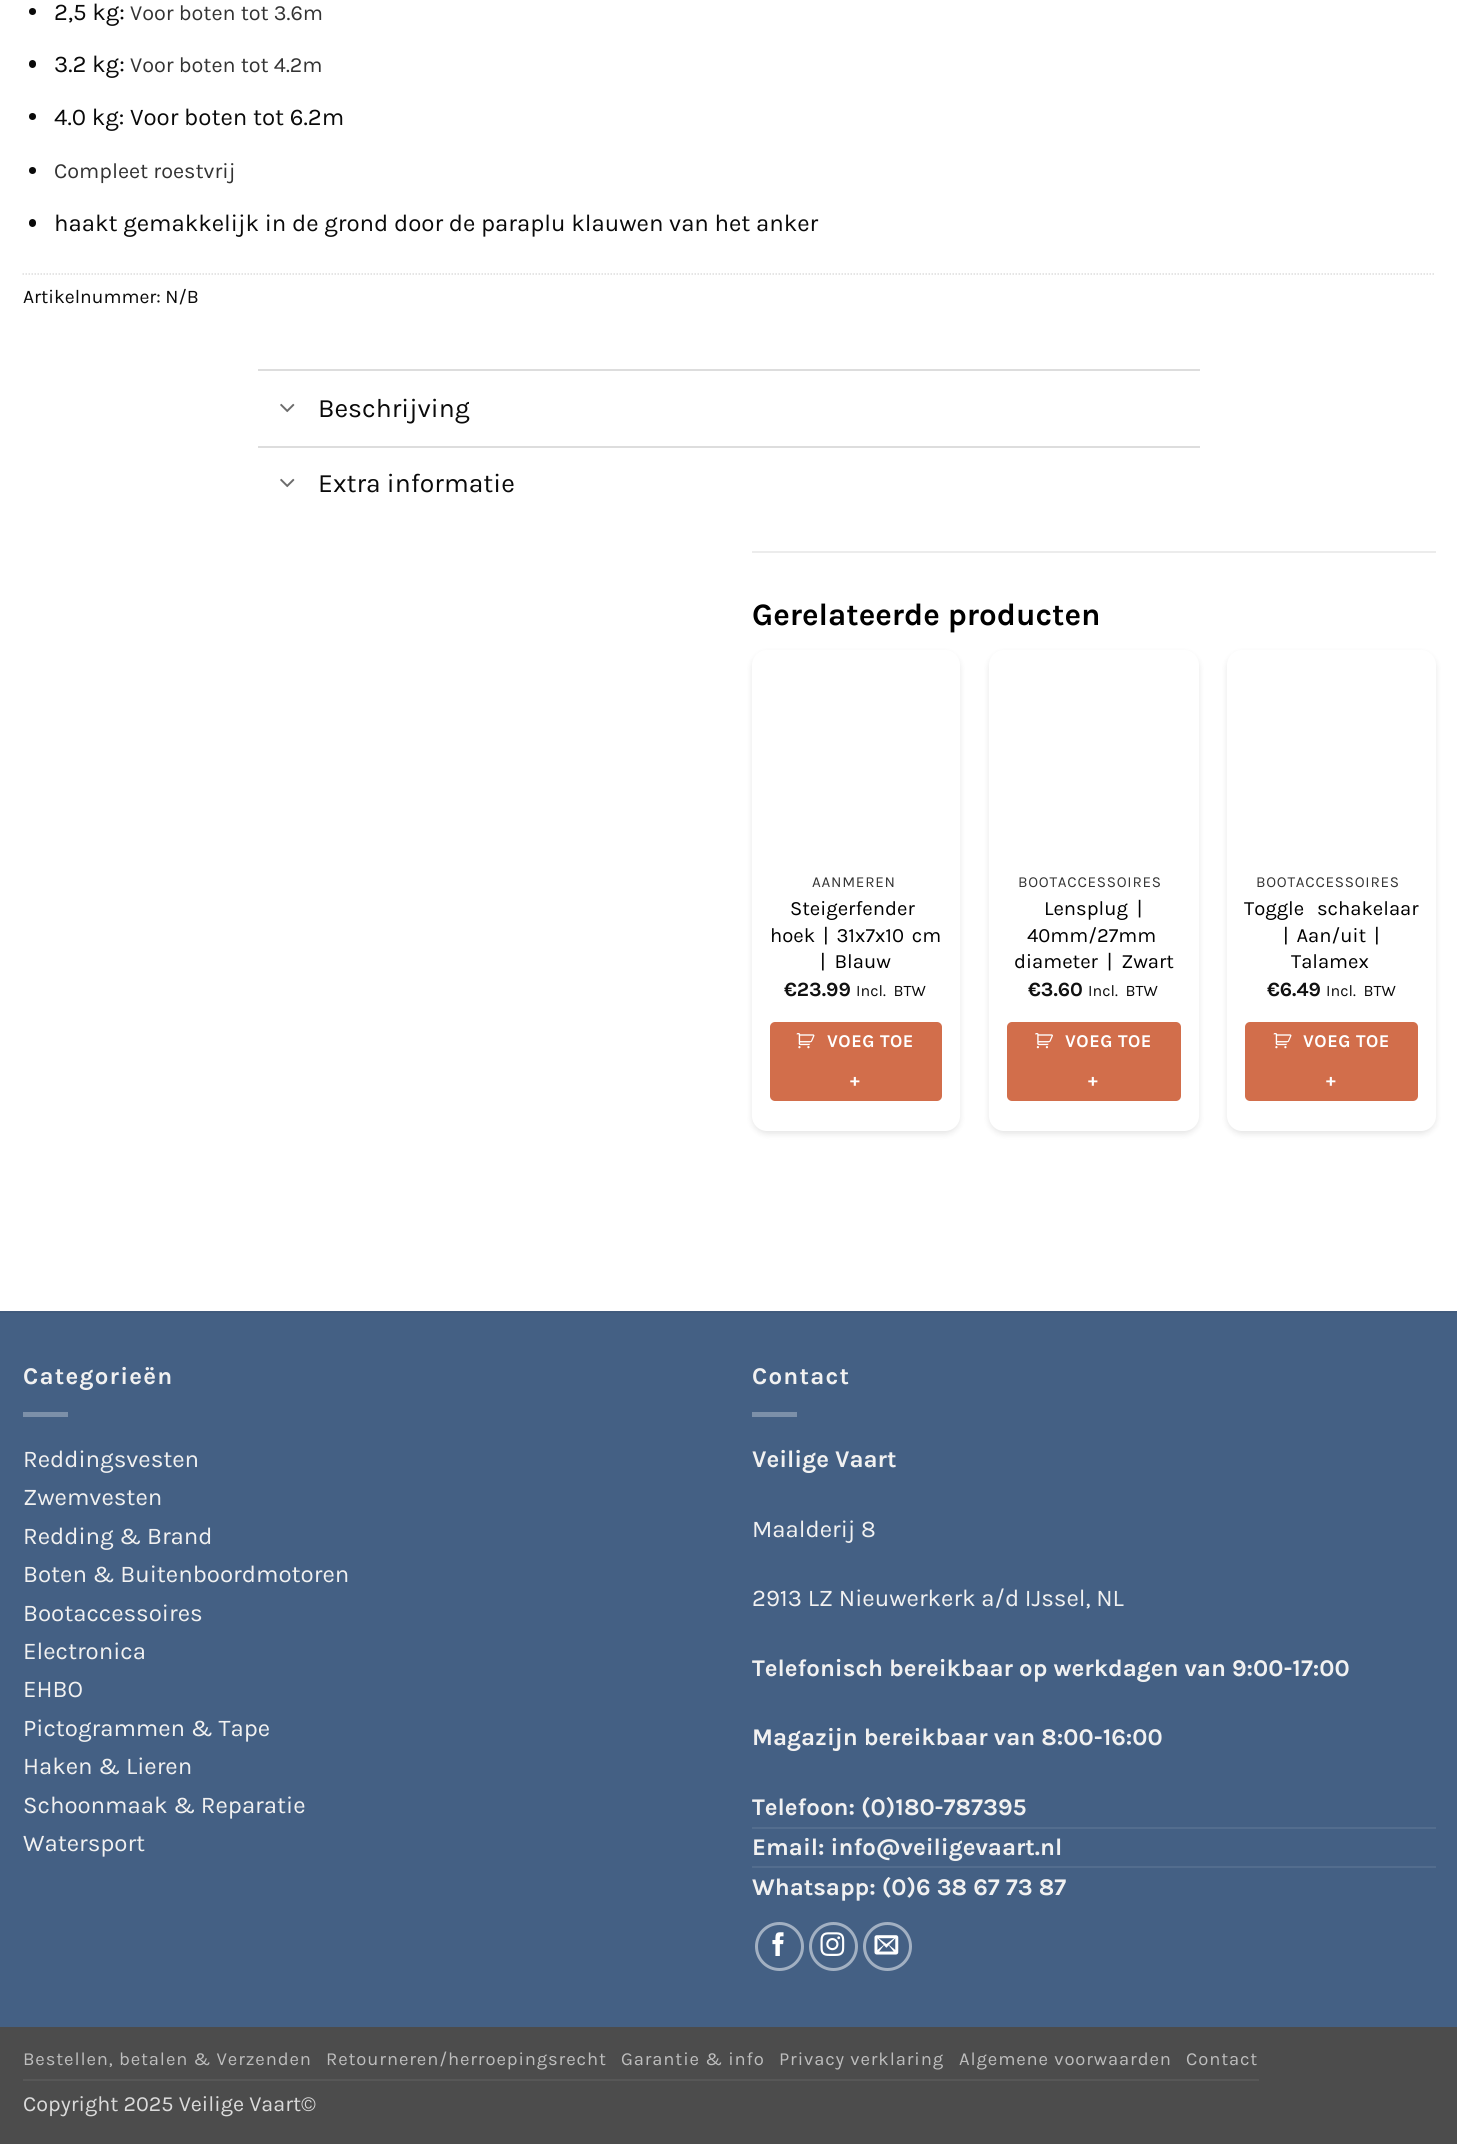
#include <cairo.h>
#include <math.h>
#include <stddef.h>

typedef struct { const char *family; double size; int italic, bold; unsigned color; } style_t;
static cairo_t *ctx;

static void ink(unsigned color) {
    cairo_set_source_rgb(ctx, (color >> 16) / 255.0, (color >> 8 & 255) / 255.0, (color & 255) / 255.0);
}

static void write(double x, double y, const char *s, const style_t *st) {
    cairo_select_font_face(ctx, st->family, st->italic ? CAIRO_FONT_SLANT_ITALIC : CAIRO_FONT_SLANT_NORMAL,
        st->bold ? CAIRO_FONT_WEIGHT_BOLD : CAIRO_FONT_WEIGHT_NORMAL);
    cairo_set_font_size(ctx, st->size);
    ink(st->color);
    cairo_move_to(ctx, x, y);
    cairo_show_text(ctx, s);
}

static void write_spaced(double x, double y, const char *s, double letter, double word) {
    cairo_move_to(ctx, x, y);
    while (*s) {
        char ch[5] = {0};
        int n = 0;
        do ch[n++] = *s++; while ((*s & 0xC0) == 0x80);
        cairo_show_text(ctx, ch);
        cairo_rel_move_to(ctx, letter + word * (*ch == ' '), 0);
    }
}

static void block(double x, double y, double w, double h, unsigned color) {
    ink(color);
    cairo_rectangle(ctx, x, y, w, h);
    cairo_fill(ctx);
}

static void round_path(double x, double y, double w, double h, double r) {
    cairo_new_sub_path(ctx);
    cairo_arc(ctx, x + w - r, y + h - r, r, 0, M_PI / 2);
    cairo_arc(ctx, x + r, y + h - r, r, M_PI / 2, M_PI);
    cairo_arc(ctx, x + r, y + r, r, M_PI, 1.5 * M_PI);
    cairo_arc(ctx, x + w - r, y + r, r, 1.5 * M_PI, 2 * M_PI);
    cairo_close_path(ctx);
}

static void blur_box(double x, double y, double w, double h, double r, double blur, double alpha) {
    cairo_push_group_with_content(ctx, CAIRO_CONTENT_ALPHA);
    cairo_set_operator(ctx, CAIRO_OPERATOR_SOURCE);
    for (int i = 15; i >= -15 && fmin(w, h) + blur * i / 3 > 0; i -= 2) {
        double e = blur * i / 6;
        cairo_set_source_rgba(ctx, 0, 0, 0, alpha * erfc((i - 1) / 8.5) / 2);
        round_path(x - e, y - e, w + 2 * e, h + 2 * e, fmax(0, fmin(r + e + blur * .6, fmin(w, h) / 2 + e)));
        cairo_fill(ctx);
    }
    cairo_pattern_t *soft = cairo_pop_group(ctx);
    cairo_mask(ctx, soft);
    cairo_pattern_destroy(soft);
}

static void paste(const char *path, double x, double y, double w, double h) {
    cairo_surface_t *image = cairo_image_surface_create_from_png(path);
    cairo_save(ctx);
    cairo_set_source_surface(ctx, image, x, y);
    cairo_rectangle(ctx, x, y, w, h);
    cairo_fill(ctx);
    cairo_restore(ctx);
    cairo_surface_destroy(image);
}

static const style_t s1 = {"Karla", 24, 0, 0, 0x0a0a0a};
static const style_t s2 = {"Karla", 21.6, 0, 0, 0x333333};
static const style_t s3 = {"Karla", 19.25, 0, 0, 0x0a0a0a};
static const style_t s4 = {"Karla", 26.5, 0, 0, 0x0a0a0a};
static const style_t s5 = {"Karla", 31.25, 0, 1, 0x000000};
static const style_t s6 = {"Karla", 20.25, 0, 0, 0x000000};
static const style_t s7 = {"Karla", 20.25, 0, 1, 0x111111};
static const style_t s8 = {"Karla", 24, 0, 0, 0xf1f1f1};
static const style_t s9 = {"Karla", 24, 0, 1, 0xf1f1f1};
static const style_t s10 = {"Karla", 21.6, 0, 0, 0xdbdbdb};

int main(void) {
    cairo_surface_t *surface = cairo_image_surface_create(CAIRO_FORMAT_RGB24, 1457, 2144);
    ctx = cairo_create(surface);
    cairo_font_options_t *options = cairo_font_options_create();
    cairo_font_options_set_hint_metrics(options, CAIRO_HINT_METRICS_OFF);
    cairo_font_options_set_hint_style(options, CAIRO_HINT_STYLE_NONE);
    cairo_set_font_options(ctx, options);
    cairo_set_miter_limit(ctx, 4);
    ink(0xffffff);
    cairo_paint(ctx);
    ink(0x0a0a0a);
    cairo_arc(ctx, 32.5, 11.5, 3.5, 0, 2 * M_PI);
    cairo_fill(ctx);
    write(54, 20, "2,5 kg:", &s1);
    write(130, 20, "Voor boten tot 3.6m", &s2);
    ink(0x0a0a0a);
    round_path(29, 60, 7, 8, 3.5);
    cairo_fill(ctx);
    write(54, 72, "3.2 kg:", &s1);
    write(130, 72, "Voor boten tot 4.2m", &s2);
    ink(0x0a0a0a);
    cairo_new_path(ctx);
    cairo_arc(ctx, 32.5, 116.5, 3.5, 0, 2 * M_PI);
    cairo_fill(ctx);
    write(54, 125, "4.0 kg: Voor boten tot 6.2m", &s1);
    cairo_new_path(ctx);
    cairo_arc(ctx, 32.5, 170.5, 3.5, 0, 2 * M_PI);
    cairo_fill(ctx);
    write(54, 178, "Compleet roestvrij", &s2);
    ink(0x0a0a0a);
    round_path(29, 219, 7, 8, 3.5);
    cairo_fill(ctx);
    write(54, 231, "haakt gemakkelijk in de grond door de paraplu klauwen van het anker", &s1);
    cairo_new_path(ctx);
    cairo_move_to(ctx, 22.5, 274);
    cairo_line_to(ctx, 1435.5, 274);
    ink(0xdddddd);
    cairo_set_line_width(ctx, 1.5);
    cairo_set_dash(ctx, (double[]){1.5, 1.5}, 2, 0);
    cairo_stroke(ctx);
    write(23, 303, "Artikelnummer: N/B", &s3);
    block(258, 369, 942, 2, 0xdddddd);
    paste("pic1.png", 280, 403, 15, 10);
    write(318, 417, "Beschrijving", &s4);
    block(258, 446, 942, 2, 0xdddddd);
    paste("pic1.png", 280, 478, 15, 10);
    write(318, 492, "Extra informatie", &s4);
    block(752, 551, 684, 2, 0xececec);
    write(752, 625, "Gerelateerde producten", &s5);
    ink(0x000000);
    blur_box(752, 653, 208, 481, 15, 3, 0.1);
    ink(0xffffff);
    round_path(752, 650, 208, 481, 15);
    cairo_fill(ctx);
    cairo_select_font_face(ctx, "Karla", CAIRO_FONT_SLANT_NORMAL, CAIRO_FONT_WEIGHT_NORMAL);
    cairo_set_font_size(ctx, 15.25);
    ink(0x333333);
    write_spaced(812, 887, "AANMEREN", 0.75, 0);
    write(790, 915, "Steigerfender", &s6);
    write_spaced(770, 942, "hoek | 31x7x10 cm", 0, 3);
    write_spaced(820, 968, "| Blauw", 0, 4);
    write(784, 996, "€23.99", &s7);
    cairo_select_font_face(ctx, "Karla", CAIRO_FONT_SLANT_NORMAL, CAIRO_FONT_WEIGHT_NORMAL);
    cairo_set_font_size(ctx, 16);
    ink(0x0a0a0a);
    write_spaced(856, 996, "Incl. BTW", 0, 4);
    ink(0xd26e4b);
    round_path(768.5, 1020.5, 175, 82, 6.5);
    cairo_fill_preserve(ctx);
    ink(0xffffff);
    cairo_set_line_width(ctx, 3);
    cairo_set_dash(ctx, NULL, 0, 0);
    cairo_stroke(ctx);
    paste("pic2.png", 796, 1033, 19, 16);
    cairo_select_font_face(ctx, "Karla", CAIRO_FONT_SLANT_NORMAL, CAIRO_FONT_WEIGHT_BOLD);
    cairo_set_font_size(ctx, 18);
    write_spaced(827, 1047, "VOEG TOE", 0.5, 0);
    write_spaced(850, 1086, "+", 0.5, 0);
    ink(0x000000);
    blur_box(989, 653, 210, 481, 15, 3, 0.1);
    ink(0xffffff);
    round_path(989, 650, 210, 481, 15);
    cairo_fill(ctx);
    cairo_select_font_face(ctx, "Karla", CAIRO_FONT_SLANT_NORMAL, CAIRO_FONT_WEIGHT_NORMAL);
    cairo_set_font_size(ctx, 15.25);
    ink(0x333333);
    write_spaced(1018, 887, "BOOTACCESSOIRES", 0.75, 0);
    cairo_set_font_size(ctx, 20.25);
    ink(0x000000);
    write_spaced(1044, 915, "Lensplug |", 0, 4);
    write(1027, 942, "40mm/27mm", &s6);
    write_spaced(1014, 968, "diameter | Zwart", 0, 4);
    write(1028, 996, "€3.60", &s7);
    cairo_select_font_face(ctx, "Karla", CAIRO_FONT_SLANT_NORMAL, CAIRO_FONT_WEIGHT_NORMAL);
    cairo_set_font_size(ctx, 16);
    ink(0x0a0a0a);
    write_spaced(1088, 996, "Incl. BTW", 0, 4);
    ink(0xd26e4b);
    round_path(1005.5, 1020.5, 177, 82, 6.5);
    cairo_fill_preserve(ctx);
    ink(0xffffff);
    cairo_stroke(ctx);
    paste("pic3.png", 1035, 1033, 18, 16);
    cairo_select_font_face(ctx, "Karla", CAIRO_FONT_SLANT_NORMAL, CAIRO_FONT_WEIGHT_BOLD);
    cairo_set_font_size(ctx, 18);
    write_spaced(1065, 1047, "VOEG TOE", 0.5, 0);
    write_spaced(1088, 1086, "+", 0.5, 0);
    ink(0x000000);
    blur_box(1227, 653, 209, 481, 15, 3, 0.1);
    ink(0xffffff);
    round_path(1227, 650, 209, 481, 15);
    cairo_fill(ctx);
    cairo_select_font_face(ctx, "Karla", CAIRO_FONT_SLANT_NORMAL, CAIRO_FONT_WEIGHT_NORMAL);
    cairo_set_font_size(ctx, 15.25);
    ink(0x333333);
    write_spaced(1256, 887, "BOOTACCESSOIRES", 0.75, 0);
    cairo_set_font_size(ctx, 20.25);
    ink(0x000000);
    write_spaced(1244, 915, "Toggle schakelaar", 0, 8);
    write_spaced(1283, 942, "| Aan/uit |", 0, 3);
    write(1291, 968, "Talamex", &s6);
    write(1267, 996, "€6.49", &s7);
    cairo_select_font_face(ctx, "Karla", CAIRO_FONT_SLANT_NORMAL, CAIRO_FONT_WEIGHT_NORMAL);
    cairo_set_font_size(ctx, 16);
    ink(0x0a0a0a);
    write_spaced(1326, 996, "Incl. BTW", 0, 4);
    ink(0xd26e4b);
    round_path(1243.5, 1020.5, 176, 82, 6.5);
    cairo_fill_preserve(ctx);
    ink(0xffffff);
    cairo_stroke(ctx);
    paste("pic2.png", 1273, 1033, 19, 16);
    cairo_select_font_face(ctx, "Karla", CAIRO_FONT_SLANT_NORMAL, CAIRO_FONT_WEIGHT_BOLD);
    cairo_set_font_size(ctx, 18);
    write_spaced(1303, 1047, "VOEG TOE", 0.5, 0);
    write_spaced(1326, 1086, "+", 0.5, 0);
    block(0, 1313, 1457, 714, 0x446084);
    block(0, 1311, 1457, 2, 0x415b7d);
    cairo_set_font_size(ctx, 24);
    ink(0xf1f1f1);
    write_spaced(23, 1384, "Categorieën", 1.25, 0);
    block(23, 1412, 45, 5, 0x7c90a9);
    write(23, 1467, "Reddingsvesten", &s8);
    write(23, 1505, "Zwemvesten", &s8);
    write(23, 1544, "Redding & Brand", &s8);
    write(23, 1582, "Boten & Buitenboordmotoren", &s8);
    write(23, 1621, "Bootaccessoires", &s8);
    write(23, 1659, "Electronica", &s8);
    write(23, 1697, "EHBO", &s8);
    write(23, 1736, "Pictogrammen & Tape", &s8);
    write(23, 1774, "Haken & Lieren", &s8);
    write(23, 1813, "Schoonmaak & Reparatie", &s8);
    write(23, 1851, "Watersport", &s8);
    cairo_select_font_face(ctx, "Karla", CAIRO_FONT_SLANT_NORMAL, CAIRO_FONT_WEIGHT_BOLD);
    write_spaced(752, 1384, "Contact", 1.25, 0);
    block(752, 1412, 45, 5, 0x7c90a9);
    write(752, 1467, "Veilige Vaart", &s9);
    write(752, 1537, "Maalderij 8", &s8);
    write(752, 1606, "2913 LZ Nieuwerkerk a/d IJssel, NL", &s8);
    write(752, 1676, "Telefonisch bereikbaar op werkdagen van 9:00-17:00", &s9);
    write(752, 1745, "Magazijn bereikbaar van 8:00-16:00", &s9);
    write(752, 1815, "Telefoon: (0)180-787395", &s9);
    block(752, 1827, 684, 2, 0x536d8e);
    write(752, 1855, "Email: info@veiligevaart.nl", &s9);
    block(752, 1866, 684, 2, 0x536d8e);
    write(752, 1895, "Whatsapp: (0)6 38 67 73 87", &s9);
    cairo_new_path(ctx);
    cairo_arc(ctx, 779.5, 1946.5, 23, 0, 2 * M_PI);
    ink(0xa2b0c2);
    cairo_stroke(ctx);
    paste("pic4.png", 772, 1932, 12, 24);
    cairo_arc(ctx, 833.5, 1946.5, 23, 0, 2 * M_PI);
    cairo_stroke(ctx);
    paste("pic5.png", 820, 1932, 25, 24);
    cairo_arc(ctx, 887.5, 1946.5, 23, 0, 2 * M_PI);
    cairo_stroke(ctx);
    paste("pic6.png", 874, 1935, 25, 20);
    block(0, 2027, 1457, 117, 0x4c4c4c);
    block(23, 2079, 1236, 2, 0x575757);
    cairo_select_font_face(ctx, "Karla", CAIRO_FONT_SLANT_NORMAL, CAIRO_FONT_WEIGHT_NORMAL);
    cairo_set_font_size(ctx, 18.4);
    ink(0xbebebe);
    write_spaced(23, 2065, "Bestellen, betalen & Verzenden", 0.9, 0);
    write_spaced(326, 2065, "Retourneren/herroepingsrecht", 0.9, 0);
    write_spaced(621, 2065, "Garantie & info", 0.9, 0);
    write_spaced(779, 2065, "Privacy verklaring", 0.9, 0);
    write_spaced(959, 2065, "Algemene voorwaarden", 0.9, 0);
    write_spaced(1186, 2065, "Contact", 0.9, 0);
    write(23, 2111, "Copyright 2025 Veilige Vaart©", &s10);
    cairo_surface_write_to_png(surface, "screenshot.png");
    cairo_font_options_destroy(options);
    cairo_destroy(ctx);
    cairo_surface_destroy(surface);
    return 0;
}
